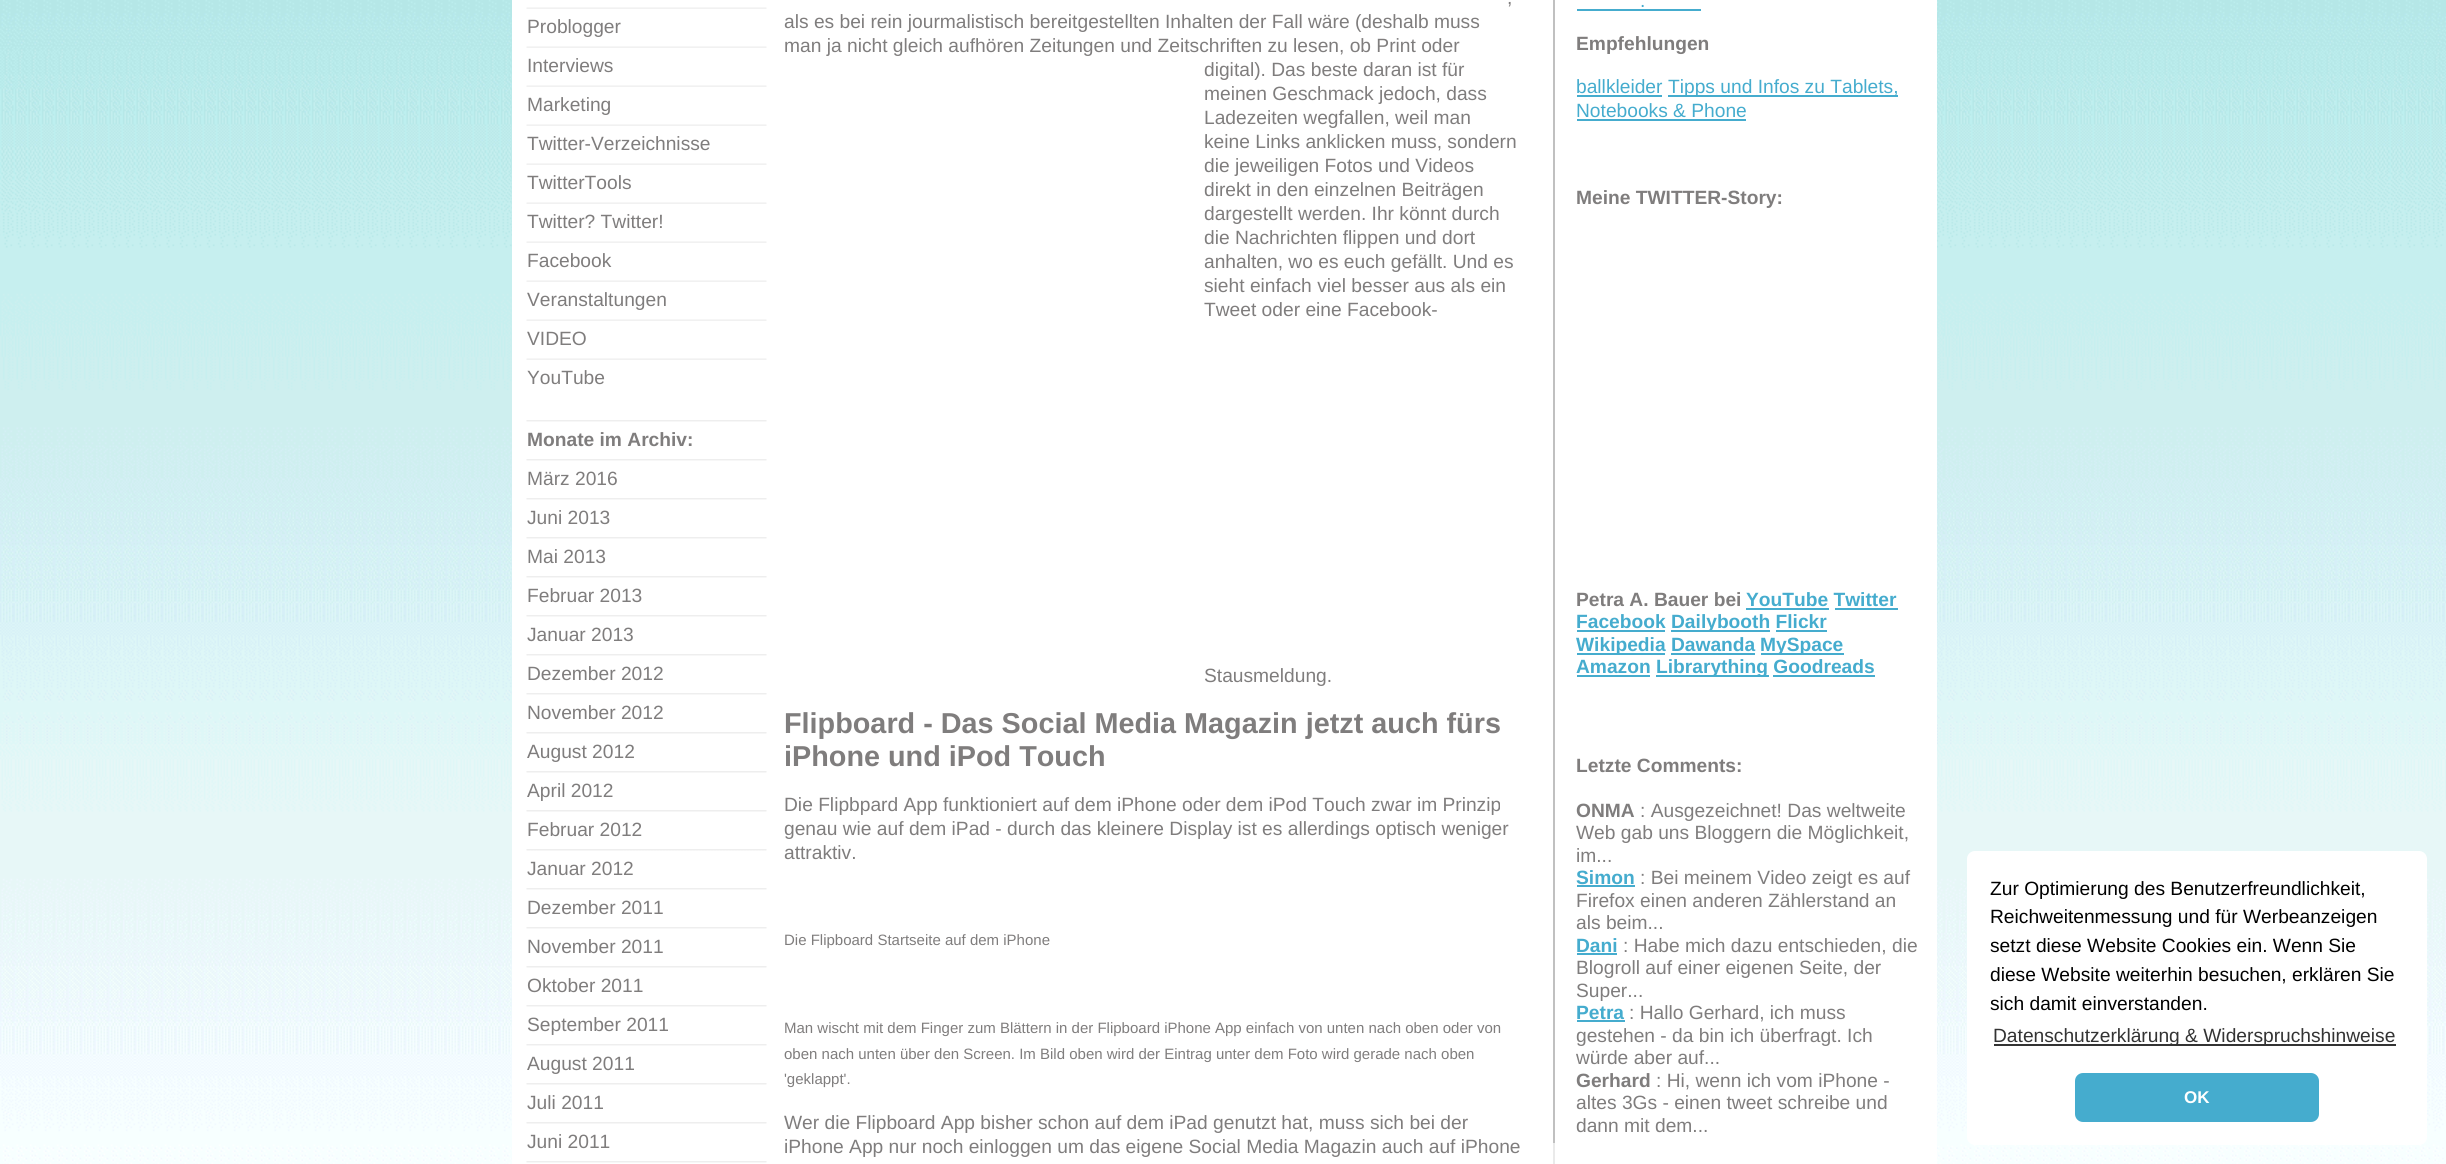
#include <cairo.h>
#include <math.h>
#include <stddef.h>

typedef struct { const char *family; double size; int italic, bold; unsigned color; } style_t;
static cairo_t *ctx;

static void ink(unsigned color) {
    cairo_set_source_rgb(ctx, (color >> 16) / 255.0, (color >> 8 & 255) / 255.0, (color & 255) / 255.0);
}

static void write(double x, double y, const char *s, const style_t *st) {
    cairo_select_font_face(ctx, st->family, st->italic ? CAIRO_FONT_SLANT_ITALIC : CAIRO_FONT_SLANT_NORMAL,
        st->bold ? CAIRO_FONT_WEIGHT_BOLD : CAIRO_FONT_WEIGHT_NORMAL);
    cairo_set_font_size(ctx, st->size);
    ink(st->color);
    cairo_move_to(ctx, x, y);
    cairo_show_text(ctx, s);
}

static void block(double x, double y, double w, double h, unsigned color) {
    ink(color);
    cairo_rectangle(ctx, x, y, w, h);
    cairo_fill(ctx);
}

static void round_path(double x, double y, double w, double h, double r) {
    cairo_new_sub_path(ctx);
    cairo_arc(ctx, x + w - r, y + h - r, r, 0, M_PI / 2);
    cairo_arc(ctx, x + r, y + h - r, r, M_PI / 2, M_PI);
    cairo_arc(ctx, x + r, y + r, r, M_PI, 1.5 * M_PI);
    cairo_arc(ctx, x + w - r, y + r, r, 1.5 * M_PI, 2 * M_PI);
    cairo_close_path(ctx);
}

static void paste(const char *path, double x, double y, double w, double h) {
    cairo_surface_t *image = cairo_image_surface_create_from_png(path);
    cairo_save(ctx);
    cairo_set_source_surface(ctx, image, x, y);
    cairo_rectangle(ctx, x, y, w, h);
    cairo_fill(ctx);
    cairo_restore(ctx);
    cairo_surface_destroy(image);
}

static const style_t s1 = {"Liberation Sans", 19.2, 0, 0, 0x7f7d7d};
static const style_t s2 = {"Liberation Sans", 19.2, 0, 1, 0x7f7d7d};
static const style_t s3 = {"Liberation Sans", 28.8, 0, 1, 0x7f7d7d};
static const style_t s4 = {"Liberation Sans", 15, 0, 0, 0x7f7d7d};
static const style_t s5 = {"Liberation Sans", 19.2, 0, 0, 0x45acce};
static const style_t s6 = {"Liberation Sans", 19.2, 0, 1, 0x45acce};
static const style_t s7 = {"Liberation Sans", 19.2, 0, 0, 0x000000};
static const style_t s8 = {"Liberation Sans", 19.2, 0, 0, 0x333333};
static const style_t s9 = {"Liberation Sans", 17, 0, 1, 0xffffff};

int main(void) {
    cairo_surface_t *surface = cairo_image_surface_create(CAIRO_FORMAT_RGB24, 2446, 1164);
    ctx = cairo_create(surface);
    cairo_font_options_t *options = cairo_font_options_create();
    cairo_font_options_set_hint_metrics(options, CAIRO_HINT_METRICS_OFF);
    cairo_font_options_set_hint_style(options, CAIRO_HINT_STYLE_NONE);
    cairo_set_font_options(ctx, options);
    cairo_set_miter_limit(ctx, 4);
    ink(0xffffff);
    cairo_paint(ctx);
    paste("pic1.png", 0, 0, 2446, 1164);
    block(512, 0, 1425, 1164, 0xffffff);
    paste("pic2.png", 526, 7, 241, 2);
    write(527, 33, "Problogger", &s1);
    paste("pic2.png", 526, 46, 241, 2);
    write(527, 72, "Interviews", &s1);
    paste("pic2.png", 526, 85, 241, 2);
    write(527, 111, "Marketing", &s1);
    paste("pic2.png", 526, 124, 241, 2);
    write(527, 150, "Twitter-Verzeichnisse", &s1);
    paste("pic2.png", 526, 163, 241, 2);
    write(527, 189, "TwitterTools", &s1);
    paste("pic2.png", 526, 202, 241, 2);
    write(527, 228, "Twitter? Twitter!", &s1);
    paste("pic2.png", 526, 241, 241, 2);
    write(527, 267, "Facebook", &s1);
    paste("pic2.png", 526, 280, 241, 2);
    write(527, 306, "Veranstaltungen", &s1);
    paste("pic2.png", 526, 319, 241, 2);
    write(527, 345, "VIDEO", &s1);
    paste("pic2.png", 526, 358, 241, 2);
    write(527, 384, "YouTube", &s1);
    paste("pic3.png", 526, 420, 241, 2);
    write(527, 446, "Monate im Archiv:", &s2);
    paste("pic3.png", 526, 459, 241, 2);
    write(527, 485, "März 2016", &s1);
    paste("pic3.png", 526, 498, 241, 2);
    write(527, 524, "Juni 2013", &s1);
    paste("pic3.png", 526, 537, 241, 2);
    write(527, 563, "Mai 2013", &s1);
    paste("pic3.png", 526, 576, 241, 2);
    write(527, 602, "Februar 2013", &s1);
    paste("pic3.png", 526, 615, 241, 2);
    write(527, 641, "Januar 2013", &s1);
    paste("pic4.png", 526, 654, 241, 2);
    write(527, 680, "Dezember 2012", &s1);
    paste("pic3.png", 526, 693, 241, 2);
    write(527, 719, "November 2012", &s1);
    paste("pic5.png", 526, 732, 241, 2);
    write(527, 758, "August 2012", &s1);
    paste("pic5.png", 526, 771, 241, 2);
    write(527, 797, "April 2012", &s1);
    paste("pic5.png", 526, 810, 241, 2);
    write(527, 836, "Februar 2012", &s1);
    paste("pic6.png", 526, 849, 241, 2);
    write(527, 875, "Januar 2012", &s1);
    paste("pic3.png", 526, 888, 241, 2);
    write(527, 914, "Dezember 2011", &s1);
    paste("pic3.png", 526, 927, 241, 2);
    write(527, 953, "November 2011", &s1);
    paste("pic5.png", 526, 966, 241, 2);
    write(527, 992, "Oktober 2011", &s1);
    paste("pic3.png", 526, 1005, 241, 2);
    write(527, 1031, "September 2011", &s1);
    paste("pic3.png", 526, 1044, 241, 2);
    write(527, 1070, "August 2011", &s1);
    paste("pic5.png", 526, 1083, 241, 2);
    write(527, 1109, "Juli 2011", &s1);
    paste("pic5.png", 526, 1122, 241, 2);
    write(527, 1148, "Juni 2011", &s1);
    paste("pic3.png", 526, 1161, 241, 2);
    write(1507, 4, ",", &s1);
    write(784, 28, "als es bei rein jourmalistisch bereitgestellten Inhalten der Fall wäre (deshalb muss", &s1);
    write(784, 52, "man ja nicht gleich aufhören Zeitungen und Zeitschriften zu lesen, ob Print oder", &s1);
    write(1204, 76, "digital). Das beste daran ist für", &s1);
    write(1204, 100, "meinen Geschmack jedoch, dass", &s1);
    write(1204, 124, "Ladezeiten wegfallen, weil man", &s1);
    write(1204, 148, "keine Links anklicken muss, sondern", &s1);
    write(1204, 172, "die jeweiligen Fotos und Videos", &s1);
    write(1204, 196, "direkt in den einzelnen Beiträgen", &s1);
    write(1204, 220, "dargestellt werden. Ihr könnt durch", &s1);
    write(1204, 244, "die Nachrichten flippen und dort", &s1);
    write(1204, 268, "anhalten, wo es euch gefällt. Und es", &s1);
    write(1204, 292, "sieht einfach viel besser aus als ein", &s1);
    write(1204, 316, "Tweet oder eine Facebook-", &s1);
    write(1204, 682, "Stausmeldung.", &s1);
    write(784, 733, "Flipboard - Das Social Media Magazin jetzt auch fürs", &s3);
    write(784, 766, "iPhone und iPod Touch", &s3);
    write(784, 811, "Die Flipbpard App funktioniert auf dem iPhone oder dem iPod Touch zwar im Prinzip", &s1);
    write(784, 835, "genau wie auf dem iPad - durch das kleinere Display ist es allerdings optisch weniger", &s1);
    write(784, 859, "attraktiv.", &s1);
    write(784, 945, "Die Flipboard Startseite auf dem iPhone", &s4);
    write(784, 1033, "Man wischt mit dem Finger zum Blättern in der Flipboard iPhone App einfach von unten nach oben oder von", &s4);
    write(784, 1059, "oben nach unten über den Screen. Im Bild oben wird der Eintrag unter dem Foto wird gerade nach oben", &s4);
    write(784, 1084, "'geklappt'.", &s4);
    write(784, 1129, "Wer die Flipboard App bisher schon auf dem iPad genutzt hat, muss sich bei der", &s1);
    write(784, 1153, "iPhone App nur noch einloggen um das eigene Social Media Magazin auch auf iPhone", &s1);
    block(1553, 0, 2, 1143, 0xc0c0c0);
    write(1640, 7, ".", &s5);
    block(1577, 9, 124, 2, 0x45acce);
    write(1576, 50, "Empfehlungen", &s2);
    write(1576, 93, "ballkleider", &s5);
    block(1577, 95, 85, 2, 0x45acce);
    block(1668, 95, 230, 2, 0x45acce);
    write(1668, 93, "Tipps und Infos zu Tablets,", &s5);
    write(1576, 117, "Notebooks & Phone", &s5);
    block(1577, 119, 169, 2, 0x45acce);
    write(1576, 204, "Meine TWITTER-Story:", &s2);
    write(1576, 606, "Petra A. Bauer bei", &s2);
    write(1746, 606, "YouTube Twitter", &s6);
    block(1746, 608, 83, 2, 0x45acce);
    block(1835, 608, 63, 2, 0x45acce);
    write(1576, 628, "Facebook", &s6);
    block(1577, 630, 88, 2, 0x45acce);
    block(1671, 630, 99, 2, 0x45acce);
    write(1671, 628, "Dailybooth Flickr", &s6);
    block(1776, 630, 51, 2, 0x45acce);
    block(1577, 653, 88, 2, 0x45acce);
    write(1576, 651, "Wikipedia Dawanda", &s6);
    block(1671, 653, 84, 2, 0x45acce);
    block(1761, 653, 83, 2, 0x45acce);
    write(1760, 651, "MySpace", &s6);
    write(1576, 673, "Amazon", &s6);
    block(1577, 675, 73, 2, 0x45acce);
    block(1656, 675, 113, 2, 0x45acce);
    write(1656, 673, "Librarything Goodreads", &s6);
    block(1773, 675, 102, 2, 0x45acce);
    write(1576, 772, "Letzte Comments:", &s2);
    write(1576, 817, "ONMA", &s2);
    write(1640, 817, ": Ausgezeichnet! Das weltweite", &s1);
    write(1576, 839, "Web gab uns Bloggern die Möglichkeit,", &s1);
    write(1576, 862, "im...", &s1);
    write(1576, 884, "Simon", &s6);
    block(1577, 885, 58, 2, 0x45acce);
    write(1640, 884, ": Bei meinem Video zeigt es auf", &s1);
    write(1576, 907, "Firefox einen anderen Zählerstand an", &s1);
    write(1576, 929, "als beim...", &s1);
    write(1576, 952, "Dani", &s6);
    block(1577, 953, 40, 2, 0x45acce);
    write(1623, 952, ": Habe mich dazu entschieden, die", &s1);
    write(1576, 974, "Blogroll auf einer eigenen Seite, der", &s1);
    write(1576, 997, "Super...", &s1);
    write(1576, 1019, "Petra", &s6);
    block(1577, 1020, 48, 2, 0x45acce);
    write(1629, 1019, ": Hallo Gerhard, ich muss", &s1);
    write(1576, 1042, "gestehen - da bin ich überfragt. Ich", &s1);
    write(1576, 1064, "würde aber auf...", &s1);
    write(1576, 1087, "Gerhard", &s2);
    write(1656, 1087, ": Hi, wenn ich vom iPhone -", &s1);
    write(1576, 1109, "altes 3Gs - einen tweet schreibe und", &s1);
    write(1576, 1132, "dann mit dem...", &s1);
    block(1553, 1143, 2, 21, 0xeaeaea);
    ink(0xffffff);
    round_path(1967, 851, 460, 294, 8);
    cairo_fill(ctx);
    write(1990, 895, "Zur Optimierung des Benutzerfreundlichkeit,", &s7);
    write(1990, 923, "Reichweitenmessung und für Werbeanzeigen", &s7);
    write(1990, 952, "setzt diese Website Cookies ein. Wenn Sie", &s7);
    write(1990, 981, "diese Website weiterhin besuchen, erklären Sie", &s7);
    write(1990, 1010, "sich damit einverstanden.", &s7);
    block(1994, 1044, 402, 2, 0x333333);
    write(1993, 1042, "Datenschutzerklärung & Widerspruchshinweise", &s8);
    ink(0x45acce);
    round_path(2075, 1073, 244, 49, 8);
    cairo_fill(ctx);
    write(2184, 1103, "OK", &s9);
    cairo_surface_write_to_png(surface, "screenshot.png");
    cairo_font_options_destroy(options);
    cairo_destroy(ctx);
    cairo_surface_destroy(surface);
    return 0;
}
